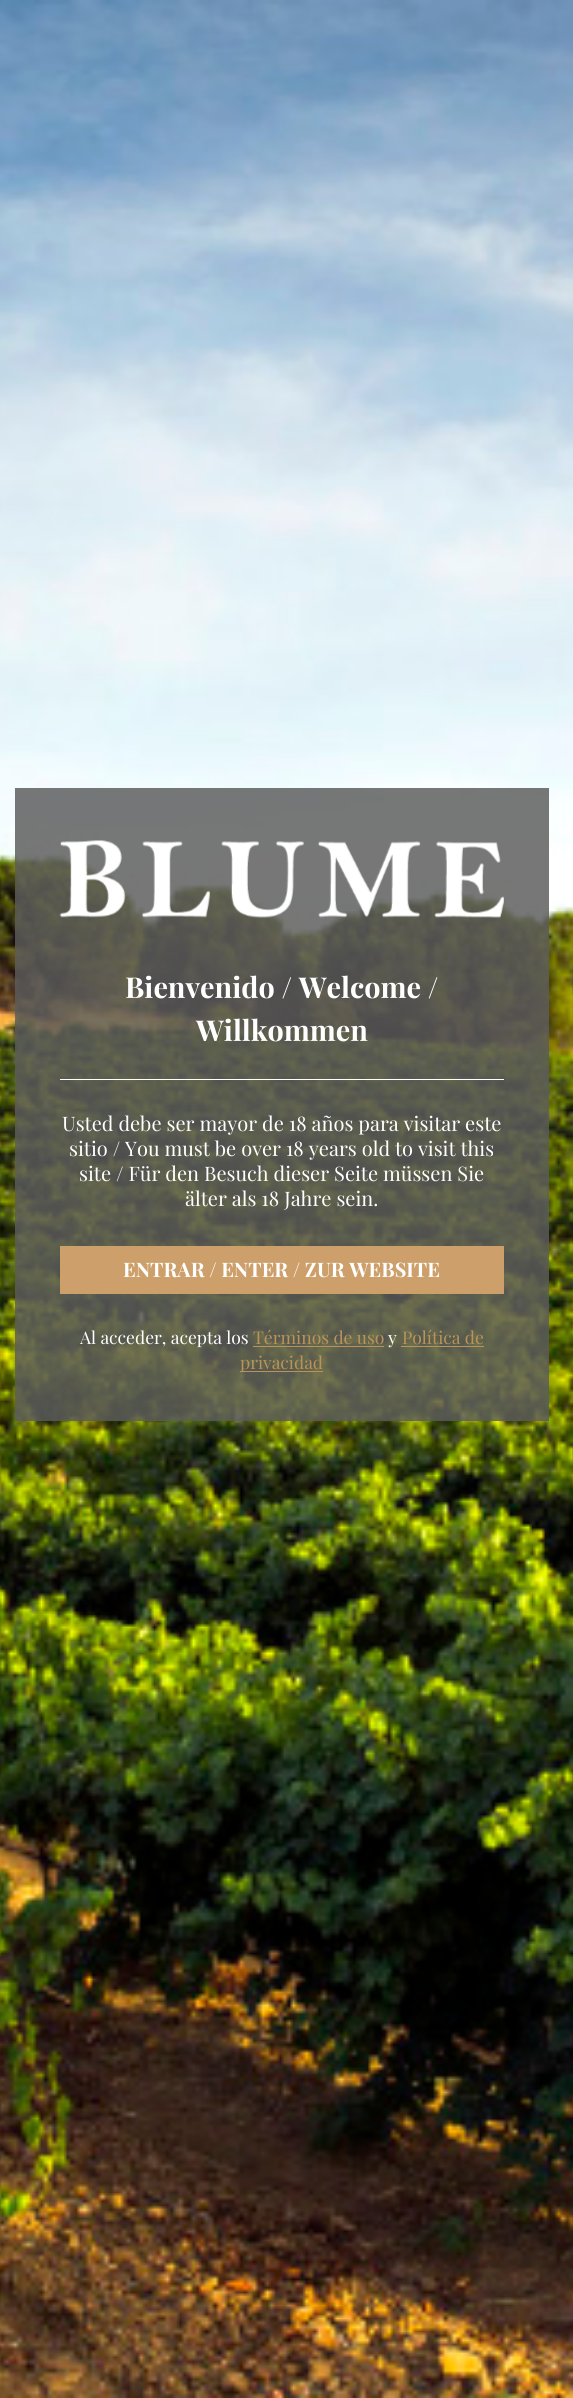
#include <cairo.h>
#include <math.h>
#include <stddef.h>

typedef struct { const char *family; double size; int italic, bold; unsigned color; } style_t;
static cairo_t *ctx;

static void ink(unsigned color) {
    cairo_set_source_rgb(ctx, (color >> 16) / 255.0, (color >> 8 & 255) / 255.0, (color & 255) / 255.0);
}

static void write(double x, double y, const char *s, const style_t *st) {
    cairo_select_font_face(ctx, st->family, st->italic ? CAIRO_FONT_SLANT_ITALIC : CAIRO_FONT_SLANT_NORMAL,
        st->bold ? CAIRO_FONT_WEIGHT_BOLD : CAIRO_FONT_WEIGHT_NORMAL);
    cairo_set_font_size(ctx, st->size);
    ink(st->color);
    cairo_move_to(ctx, x, y);
    cairo_show_text(ctx, s);
}

static void block(double x, double y, double w, double h, unsigned color) {
    ink(color);
    cairo_rectangle(ctx, x, y, w, h);
    cairo_fill(ctx);
}

static void paste(const char *path, double x, double y, double w, double h) {
    cairo_surface_t *image = cairo_image_surface_create_from_png(path);
    cairo_save(ctx);
    cairo_set_source_surface(ctx, image, x, y);
    cairo_rectangle(ctx, x, y, w, h);
    cairo_fill(ctx);
    cairo_restore(ctx);
    cairo_surface_destroy(image);
}

static const style_t s1 = {"Playfair Display", 28.75, 0, 1, 0xffffff};
static const style_t s2 = {"Playfair Display", 20, 0, 0, 0xffffff};
static const style_t s3 = {"Playfair Display", 20, 0, 1, 0xffffff};
static const style_t s4 = {"Playfair Display", 17.5, 0, 0, 0xffffff};
static const style_t s5 = {"Playfair Display", 17.5, 0, 0, 0xb9935a};

int main(void) {
    cairo_surface_t *surface = cairo_image_surface_create(CAIRO_FORMAT_RGB24, 573, 2398);
    ctx = cairo_create(surface);
    cairo_font_options_t *options = cairo_font_options_create();
    cairo_font_options_set_hint_metrics(options, CAIRO_HINT_METRICS_OFF);
    cairo_font_options_set_hint_style(options, CAIRO_HINT_STYLE_NONE);
    cairo_set_font_options(ctx, options);
    cairo_set_miter_limit(ctx, 4);
    ink(0xffffff);
    cairo_paint(ctx);
    paste("pic1.png", 0, 0, 573, 2398);
    cairo_set_source_rgba(ctx, 0.361, 0.361, 0.361, 0.83);
    cairo_rectangle(ctx, 15, 788, 534, 633);
    cairo_fill(ctx);
    paste("pic2.png", 59, 840, 445, 78);
    block(60, 1079, 444, 1, 0xffffff);
    write(125, 998, "Bienvenido / Welcome /", &s1);
    write(196, 1041, "Willkommen", &s1);
    write(62, 1131, "Usted debe ser mayor de 18 años para visitar este", &s2);
    write(69, 1156, "sitio / You must be over 18 years old to visit this", &s2);
    write(79, 1181, "site / Für den Besuch dieser Seite müssen Sie", &s2);
    write(185, 1206, "älter als 18 Jahre sein.", &s2);
    block(60, 1246, 444, 48, 0xcd9f6b);
    write(123, 1277, "ENTRAR / ENTER / ZUR WEBSITE", &s3);
    write(80, 1344, "Al acceder, acepta los", &s4);
    write(253, 1344, "Términos de uso", &s5);
    block(253, 1346, 131, 1, 0xb9935a);
    write(388, 1344, "y", &s4);
    write(402, 1344, "Política de", &s5);
    block(401, 1346, 83, 1, 0xb9935a);
    block(240, 1371, 83, 1, 0xb9935a);
    write(240, 1369, "privacidad", &s5);
    cairo_surface_write_to_png(surface, "screenshot.png");
    cairo_font_options_destroy(options);
    cairo_destroy(ctx);
    cairo_surface_destroy(surface);
    return 0;
}
